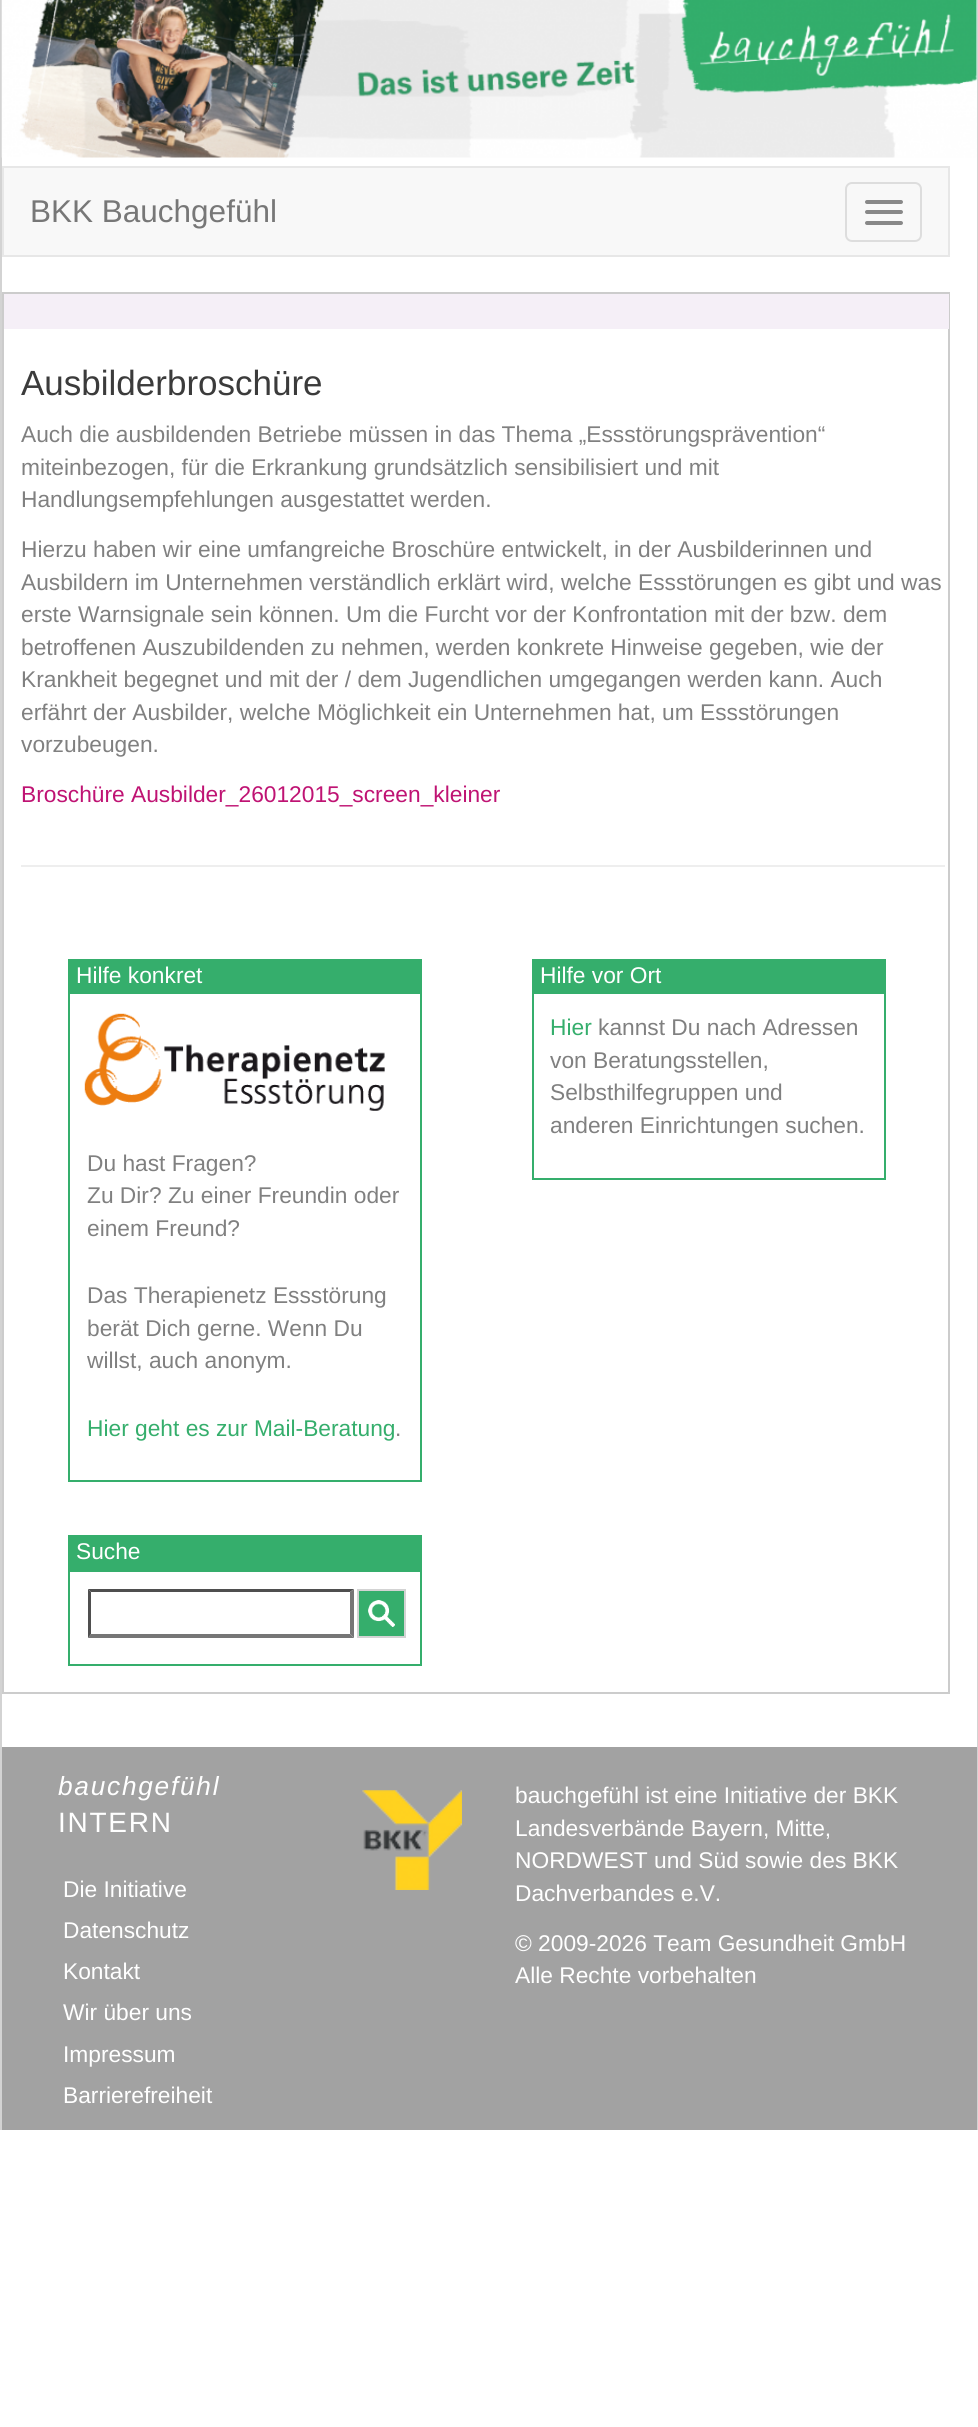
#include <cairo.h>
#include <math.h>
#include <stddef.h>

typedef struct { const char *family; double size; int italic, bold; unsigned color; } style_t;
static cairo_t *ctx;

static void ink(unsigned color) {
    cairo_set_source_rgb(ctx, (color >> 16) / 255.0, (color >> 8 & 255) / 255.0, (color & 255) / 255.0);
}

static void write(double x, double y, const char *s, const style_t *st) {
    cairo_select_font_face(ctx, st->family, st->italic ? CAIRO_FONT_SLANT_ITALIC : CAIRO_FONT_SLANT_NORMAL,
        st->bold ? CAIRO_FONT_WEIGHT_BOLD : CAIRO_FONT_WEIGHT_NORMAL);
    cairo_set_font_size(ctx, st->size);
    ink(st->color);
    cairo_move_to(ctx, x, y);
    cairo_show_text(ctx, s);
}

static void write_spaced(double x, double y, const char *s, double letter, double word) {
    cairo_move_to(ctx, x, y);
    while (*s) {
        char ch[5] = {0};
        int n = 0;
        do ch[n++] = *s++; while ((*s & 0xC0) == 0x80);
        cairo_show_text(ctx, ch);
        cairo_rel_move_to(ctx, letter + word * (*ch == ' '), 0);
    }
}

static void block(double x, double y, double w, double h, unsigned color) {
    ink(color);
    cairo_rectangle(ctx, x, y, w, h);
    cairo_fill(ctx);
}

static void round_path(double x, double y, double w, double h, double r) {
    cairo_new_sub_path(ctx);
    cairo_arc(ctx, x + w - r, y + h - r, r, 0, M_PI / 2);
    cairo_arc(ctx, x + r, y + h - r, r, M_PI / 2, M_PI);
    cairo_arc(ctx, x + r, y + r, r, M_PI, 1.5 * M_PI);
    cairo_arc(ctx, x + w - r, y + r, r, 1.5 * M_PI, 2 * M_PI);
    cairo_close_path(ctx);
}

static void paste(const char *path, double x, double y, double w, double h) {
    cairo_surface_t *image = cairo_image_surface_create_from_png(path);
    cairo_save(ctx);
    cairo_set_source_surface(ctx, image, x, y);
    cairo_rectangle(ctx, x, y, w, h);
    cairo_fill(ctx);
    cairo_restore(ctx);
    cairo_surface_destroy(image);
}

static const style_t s1 = {"Liberation Sans", 31.5, 0, 0, 0x777777};
static const style_t s2 = {"Liberation Sans", 35, 0, 0, 0x3b3b3b};
static const style_t s3 = {"Liberation Sans", 22.75, 0, 0, 0x808080};
static const style_t s4 = {"Liberation Sans", 22.75, 0, 0, 0xbf1373};
static const style_t s5 = {"Liberation Sans", 22.75, 0, 0, 0xffffff};
static const style_t s6 = {"Liberation Sans", 22.75, 0, 0, 0x35ae6c};

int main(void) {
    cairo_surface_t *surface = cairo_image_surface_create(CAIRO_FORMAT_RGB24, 978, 2427);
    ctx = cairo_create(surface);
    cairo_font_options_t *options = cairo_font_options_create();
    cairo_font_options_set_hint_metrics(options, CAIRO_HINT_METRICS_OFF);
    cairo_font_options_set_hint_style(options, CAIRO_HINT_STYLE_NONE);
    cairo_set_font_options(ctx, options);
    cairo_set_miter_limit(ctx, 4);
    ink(0xffffff);
    cairo_paint(ctx);
    block(977, 0, 1, 2130, 0xd3d3d3);
    block(0, 0, 2, 2130, 0xd3d3d3);
    paste("pic1.png", 1, 0, 976, 158);
    ink(0xf8f8f8);
    cairo_rectangle(ctx, 3, 167, 946, 89);
    cairo_fill_preserve(ctx);
    ink(0xe7e7e7);
    cairo_stroke(ctx);
    write(30, 222, "BKK Bauchgefühl", &s1);
    round_path(846, 183, 75, 58, 6);
    ink(0xdddddd);
    cairo_stroke(ctx);
    ink(0x888888);
    round_path(865, 200, 38, 4, 2);
    cairo_fill(ctx);
    round_path(865, 210, 38, 4, 2);
    cairo_fill(ctx);
    round_path(865, 221, 38, 4, 2);
    cairo_fill(ctx);
    cairo_rectangle(ctx, 3, 293, 946, 1400);
    ink(0xcccccc);
    cairo_stroke(ctx);
    block(4, 294, 945, 35, 0xf5eff7);
    write(21, 395, "Ausbilderbroschüre", &s2);
    write(21, 442, "Auch die ausbildenden Betriebe müssen in das Thema „Essstörungsprävention“", &s3);
    write(21, 475, "miteinbezogen, für die Erkrankung grundsätzlich sensibilisiert und mit", &s3);
    write(21, 507, "Handlungsempfehlungen ausgestattet werden.", &s3);
    write(21, 557, "Hierzu haben wir eine umfangreiche Broschüre entwickelt, in der Ausbilderinnen und", &s3);
    write(21, 590, "Ausbildern im Unternehmen verständlich erklärt wird, welche Essstörungen es gibt und was", &s3);
    write(21, 622, "erste Warnsignale sein können. Um die Furcht vor der Konfrontation mit der bzw. dem", &s3);
    write(21, 655, "betroffenen Auszubildenden zu nehmen, werden konkrete Hinweise gegeben, wie der", &s3);
    write(21, 687, "Krankheit begegnet und mit der / dem Jugendlichen umgegangen werden kann. Auch", &s3);
    write(21, 720, "erfährt der Ausbilder, welche Möglichkeit ein Unternehmen hat, um Essstörungen", &s3);
    write(21, 752, "vorzubeugen.", &s3);
    write(21, 802, "Broschüre Ausbilder_26012015_screen_kleiner", &s4);
    block(21, 865, 924, 2, 0xeeeeee);
    block(68, 959, 354, 33, 0x35ae6c);
    write(76, 983, "Hilfe konkret", &s5);
    cairo_rectangle(ctx, 69, 993, 352, 488);
    ink(0x35ae6c);
    cairo_stroke(ctx);
    paste("pic2.png", 84, 1013, 301, 98);
    write(87, 1171, "Du hast Fragen?", &s3);
    write(87, 1203, "Zu Dir? Zu einer Freundin oder", &s3);
    write(87, 1236, "einem Freund?", &s3);
    write(87, 1303, "Das Therapienetz Essstörung", &s3);
    write(87, 1336, "berät Dich gerne. Wenn Du", &s3);
    write(87, 1368, "willst, auch anonym.", &s3);
    write(87, 1436, "Hier geht es zur Mail-Beratung", &s6);
    write(395, 1436, ".", &s3);
    block(532, 959, 354, 33, 0x35ae6c);
    write(540, 983, "Hilfe vor Ort", &s5);
    cairo_rectangle(ctx, 533, 993, 352, 186);
    ink(0x35ae6c);
    cairo_stroke(ctx);
    write(550, 1035, "Hier", &s6);
    write(598, 1035, "kannst Du nach Adressen", &s3);
    write(550, 1068, "von Beratungsstellen,", &s3);
    write(550, 1100, "Selbsthilfegruppen und", &s3);
    write(550, 1133, "anderen Einrichtungen suchen.", &s3);
    block(68, 1535, 354, 35, 0x35ae6c);
    write(76, 1559, "Suche", &s5);
    cairo_rectangle(ctx, 69, 1571, 352, 94);
    ink(0x35ae6c);
    cairo_stroke(ctx);
    ink(0x4f4f4f);
    cairo_new_path(ctx);
    cairo_move_to(ctx, 88, 1589);
    cairo_line_to(ctx, 354, 1589);
    cairo_line_to(ctx, 350, 1592);
    cairo_line_to(ctx, 91, 1592);
    cairo_close_path(ctx);
    cairo_fill(ctx);
    ink(0x767676);
    cairo_new_path(ctx);
    cairo_move_to(ctx, 354, 1589);
    cairo_line_to(ctx, 354, 1638);
    cairo_line_to(ctx, 350, 1634);
    cairo_line_to(ctx, 350, 1592);
    cairo_close_path(ctx);
    cairo_fill(ctx);
    cairo_new_path(ctx);
    cairo_move_to(ctx, 354, 1638);
    cairo_line_to(ctx, 88, 1638);
    cairo_line_to(ctx, 91, 1634);
    cairo_line_to(ctx, 350, 1634);
    cairo_close_path(ctx);
    cairo_fill(ctx);
    ink(0x4f4f4f);
    cairo_new_path(ctx);
    cairo_move_to(ctx, 88, 1638);
    cairo_line_to(ctx, 88, 1589);
    cairo_line_to(ctx, 91, 1592);
    cairo_line_to(ctx, 91, 1634);
    cairo_close_path(ctx);
    cairo_fill(ctx);
    ink(0x35ae6c);
    cairo_rectangle(ctx, 358, 1590, 47, 47);
    cairo_fill_preserve(ctx);
    ink(0xd3d3d3);
    cairo_stroke(ctx);
    paste("pic3.png", 368, 1600, 27, 27);
    block(2, 1747, 975, 383, 0xa2a2a2);
    cairo_select_font_face(ctx, "Liberation Sans", CAIRO_FONT_SLANT_ITALIC, CAIRO_FONT_WEIGHT_NORMAL);
    cairo_set_font_size(ctx, 26.25);
    ink(0xffffff);
    write_spaced(58, 1795, "bauchgefühl", 1.75, 0);
    cairo_select_font_face(ctx, "Liberation Sans", CAIRO_FONT_SLANT_NORMAL, CAIRO_FONT_WEIGHT_NORMAL);
    cairo_set_font_size(ctx, 28);
    write_spaced(58, 1832, "INTERN", 1.75, 0);
    write(63, 1897, "Die Initiative", &s5);
    write(63, 1938, "Datenschutz", &s5);
    write(63, 1979, "Kontakt", &s5);
    write(63, 2020, "Wir über uns", &s5);
    write(63, 2062, "Impressum", &s5);
    write(63, 2103, "Barrierefreiheit", &s5);
    paste("pic4.png", 362, 1790, 100, 100);
    write(515, 1803, "bauchgefühl ist eine Initiative der BKK", &s5);
    write(515, 1836, "Landesverbände Bayern, Mitte,", &s5);
    write(515, 1868, "NORDWEST und Süd sowie des BKK", &s5);
    write(515, 1901, "Dachverbandes e.V.", &s5);
    write(515, 1951, "© 2009-2026 Team Gesundheit GmbH", &s5);
    write(515, 1983, "Alle Rechte vorbehalten", &s5);
    cairo_surface_write_to_png(surface, "screenshot.png");
    cairo_font_options_destroy(options);
    cairo_destroy(ctx);
    cairo_surface_destroy(surface);
    return 0;
}
